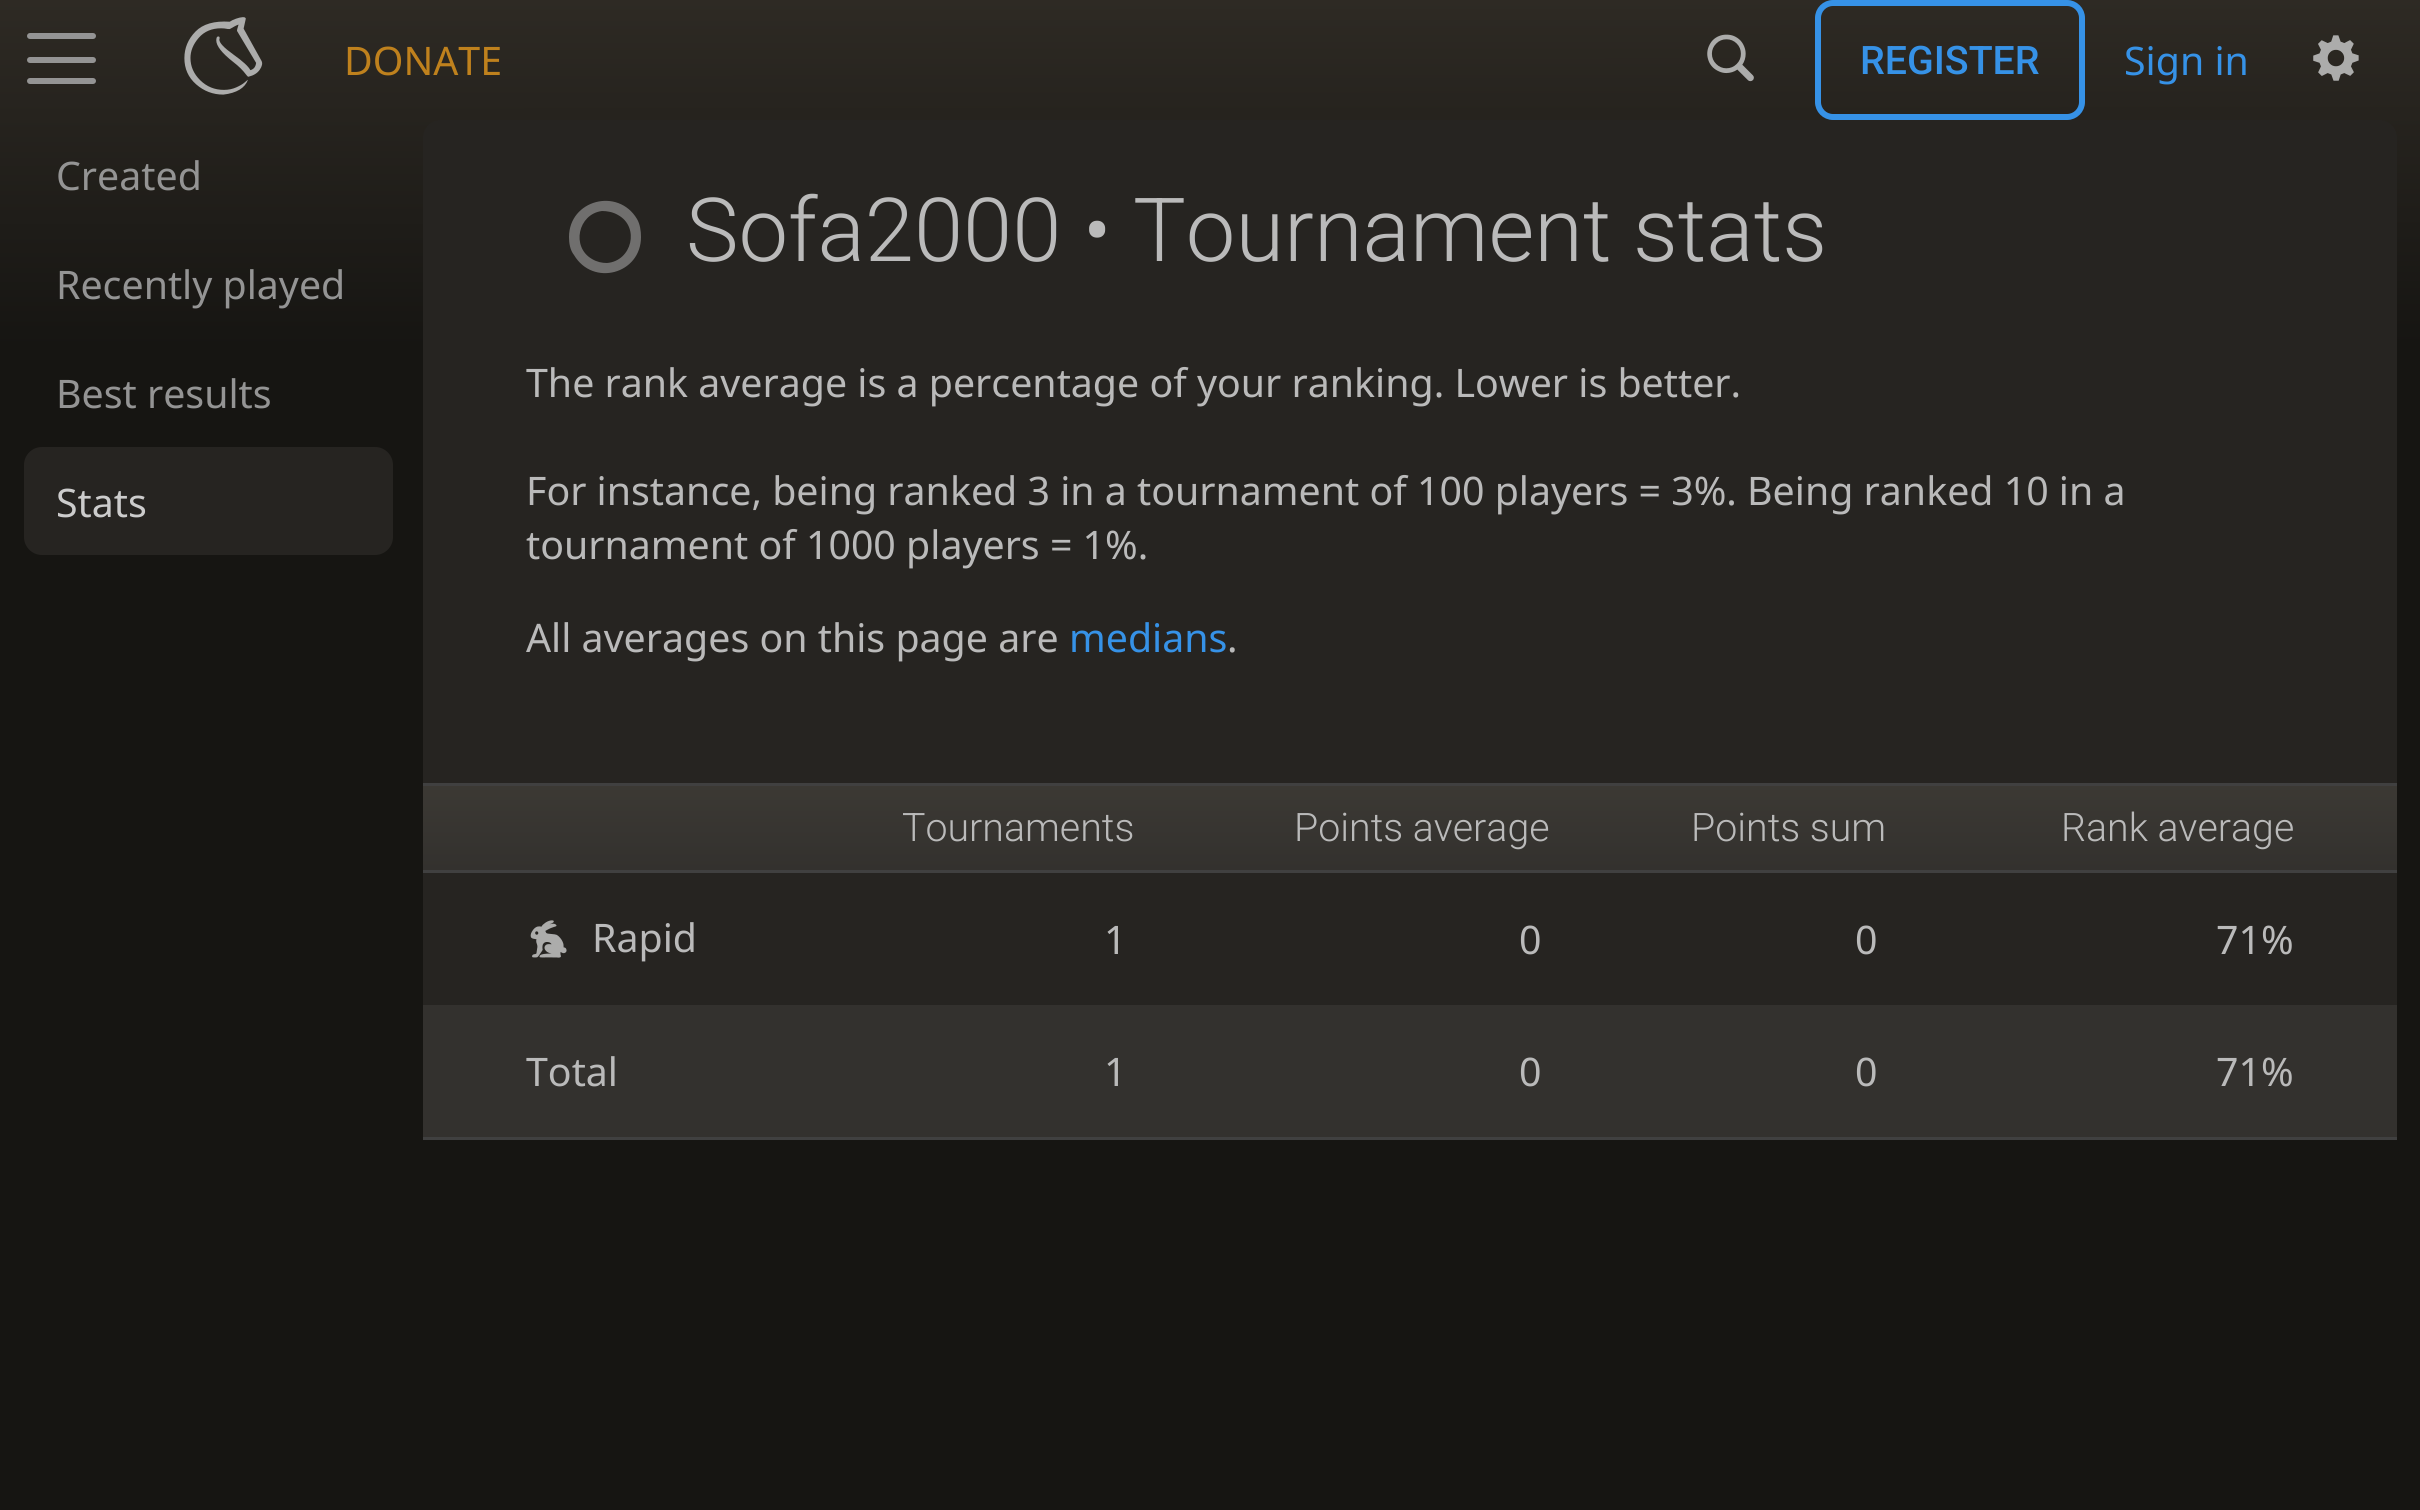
#include <cairo.h>
#include <math.h>
#include <stddef.h>

typedef struct { const char *family; double size; int italic, bold; unsigned color; } style_t;
static cairo_t *ctx;

static void ink(unsigned color) {
    cairo_set_source_rgb(ctx, (color >> 16) / 255.0, (color >> 8 & 255) / 255.0, (color & 255) / 255.0);
}

static void write(double x, double y, const char *s, const style_t *st) {
    cairo_select_font_face(ctx, st->family, st->italic ? CAIRO_FONT_SLANT_ITALIC : CAIRO_FONT_SLANT_NORMAL,
        st->bold ? CAIRO_FONT_WEIGHT_BOLD : CAIRO_FONT_WEIGHT_NORMAL);
    cairo_set_font_size(ctx, st->size);
    ink(st->color);
    cairo_move_to(ctx, x, y);
    cairo_show_text(ctx, s);
}

static void block(double x, double y, double w, double h, unsigned color) {
    ink(color);
    cairo_rectangle(ctx, x, y, w, h);
    cairo_fill(ctx);
}

static void round_path(double x, double y, double w, double h, double r) {
    cairo_new_sub_path(ctx);
    cairo_arc(ctx, x + w - r, y + h - r, r, 0, M_PI / 2);
    cairo_arc(ctx, x + r, y + h - r, r, M_PI / 2, M_PI);
    cairo_arc(ctx, x + r, y + r, r, M_PI, 1.5 * M_PI);
    cairo_arc(ctx, x + w - r, y + r, r, 1.5 * M_PI, 2 * M_PI);
    cairo_close_path(ctx);
}

static void paste(const char *path, double x, double y, double w, double h) {
    cairo_surface_t *image = cairo_image_surface_create_from_png(path);
    cairo_save(ctx);
    cairo_set_source_surface(ctx, image, x, y);
    cairo_rectangle(ctx, x, y, w, h);
    cairo_fill(ctx);
    cairo_restore(ctx);
    cairo_surface_destroy(image);
}

static const style_t s1 = {"Noto Sans", 39.3, 0, 0, 0xbf811d};
static const style_t s2 = {"Roboto Medium", 39.3, 0, 0, 0x3692e7};
static const style_t s3 = {"Noto Sans", 39.3, 0, 0, 0x3692e7};
static const style_t s4 = {"Noto Sans", 39.3, 0, 0, 0x949494};
static const style_t s5 = {"Noto Sans", 39.3, 0, 0, 0xcccccc};
static const style_t s6 = {"Roboto Light", 88.5, 0, 0, 0xbababa};
static const style_t s7 = {"Noto Sans", 39.3, 0, 0, 0xbababa};
static const style_t s8 = {"Roboto Light", 39.3, 0, 0, 0xbababa};

int main(void) {
    cairo_surface_t *surface = cairo_image_surface_create(CAIRO_FORMAT_RGB24, 2420, 1510);
    ctx = cairo_create(surface);
    cairo_font_options_t *options = cairo_font_options_create();
    cairo_font_options_set_hint_metrics(options, CAIRO_HINT_METRICS_OFF);
    cairo_font_options_set_hint_style(options, CAIRO_HINT_STYLE_NONE);
    cairo_set_font_options(ctx, options);
    cairo_set_miter_limit(ctx, 4);
    cairo_pattern_t *gradient;
    ink(0xffffff);
    cairo_paint(ctx);
    gradient = cairo_pattern_create_linear(1210, 0, 1211, 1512);
    cairo_pattern_add_color_stop_rgba(gradient, 0, 0.18, 0.165, 0.141, 1);
    cairo_pattern_add_color_stop_rgba(gradient, 0.23, 0.086, 0.082, 0.071, 1);
    cairo_set_source(ctx, gradient);
    cairo_pattern_destroy(gradient);
    cairo_rectangle(ctx, 0, 0, 2420, 1510);
    cairo_fill(ctx);
    ink(0x949494);
    round_path(27, 57, 69, 6, 3);
    cairo_fill(ctx);
    round_path(27, 33, 69, 6, 3);
    cairo_fill(ctx);
    round_path(27, 78, 69, 6, 3);
    cairo_fill(ctx);
    paste("pic1.png", 184, 17, 79, 78);
    write(344, 75, "DONATE", &s1);
    paste("pic2.png", 1707, 34, 47, 48);
    round_path(1818, 3, 264, 114, 15);
    ink(0x3692e7);
    cairo_set_line_width(ctx, 6);
    cairo_stroke(ctx);
    write(1860, 74, "REGISTER", &s2);
    write(2124, 75, "Sign in", &s3);
    paste("pic3.png", 2313, 35, 46, 46);
    write(56, 190, "Created", &s4);
    write(56, 299, "Recently played", &s4);
    write(56, 408, "Best results", &s4);
    ink(0x262421);
    round_path(24, 447, 369, 108, 18);
    cairo_fill(ctx);
    write(56, 517, "Stats", &s5);
    ink(0x262421);
    round_path(423, 120, 1974, 1020, 18);
    cairo_fill(ctx);
    ink(0x706f6e);
    cairo_new_path(ctx);
    cairo_move_to(ctx, 618, 215);
    cairo_curve_to(ctx, 613, 212, 607, 211, 602, 211);
    cairo_curve_to(ctx, 578, 214, 571, 247, 592, 259);
    cairo_curve_to(ctx, 597, 262, 602, 263, 607, 263);
    cairo_curve_to(ctx, 632, 261, 640, 227, 618, 215);
    cairo_close_path(ctx);
    cairo_move_to(ctx, 637, 219);
    cairo_curve_to(ctx, 640, 224, 641, 231, 641, 237);
    cairo_curve_to(ctx, 641, 274, 593, 287, 574, 255);
    cairo_curve_to(ctx, 570, 250, 569, 243, 569, 237);
    cairo_curve_to(ctx, 569, 200, 618, 187, 637, 219);
    cairo_close_path(ctx);
    cairo_fill(ctx);
    write(686, 261, "Sofa2000 • Tournament stats", &s6);
    write(526, 397, "The rank average is a percentage of your ranking. Lower is better.", &s7);
    write(526, 505, "For instance, being ranked 3 in a tournament of 100 players = 3%. Being ranked 10 in a", &s7);
    write(526, 559, "tournament of 1000 players = 1%.", &s7);
    write(526, 652, "All averages on this page are", &s7);
    write(1069, 652, "medians", &s3);
    write(1227, 652, ".", &s7);
    block(423, 1137, 1974, 3, 0x404040);
    gradient = cairo_pattern_create_linear(1410, 783, 1410, 870);
    cairo_pattern_add_color_stop_rgba(gradient, 0, 0.235, 0.224, 0.204, 1);
    cairo_pattern_add_color_stop_rgba(gradient, 1, 0.2, 0.192, 0.18, 1);
    cairo_set_source(ctx, gradient);
    cairo_pattern_destroy(gradient);
    cairo_rectangle(ctx, 423, 786, 1974, 84);
    cairo_fill(ctx);
    write(902, 841, "Tournaments", &s8);
    write(1294, 841, "Points average", &s8);
    write(1691, 841, "Points sum", &s8);
    block(423, 783, 1974, 3, 0x404040);
    block(423, 870, 1974, 3, 0x404040);
    write(2061, 841, "Rank average", &s8);
    paste("pic4.png", 530, 920, 37, 38);
    write(592, 952, "Rapid", &s7);
    write(1104, 954, "1", &s7);
    write(1519, 954, "0", &s7);
    write(1855, 954, "0", &s7);
    write(2216, 954, "71%", &s7);
    block(423, 1005, 1974, 132, 0x33312e);
    write(526, 1086, "Total", &s7);
    write(1104, 1086, "1", &s7);
    write(1519, 1086, "0", &s7);
    write(1855, 1086, "0", &s7);
    write(2216, 1086, "71%", &s7);
    cairo_surface_write_to_png(surface, "screenshot.png");
    cairo_font_options_destroy(options);
    cairo_destroy(ctx);
    cairo_surface_destroy(surface);
    return 0;
}
